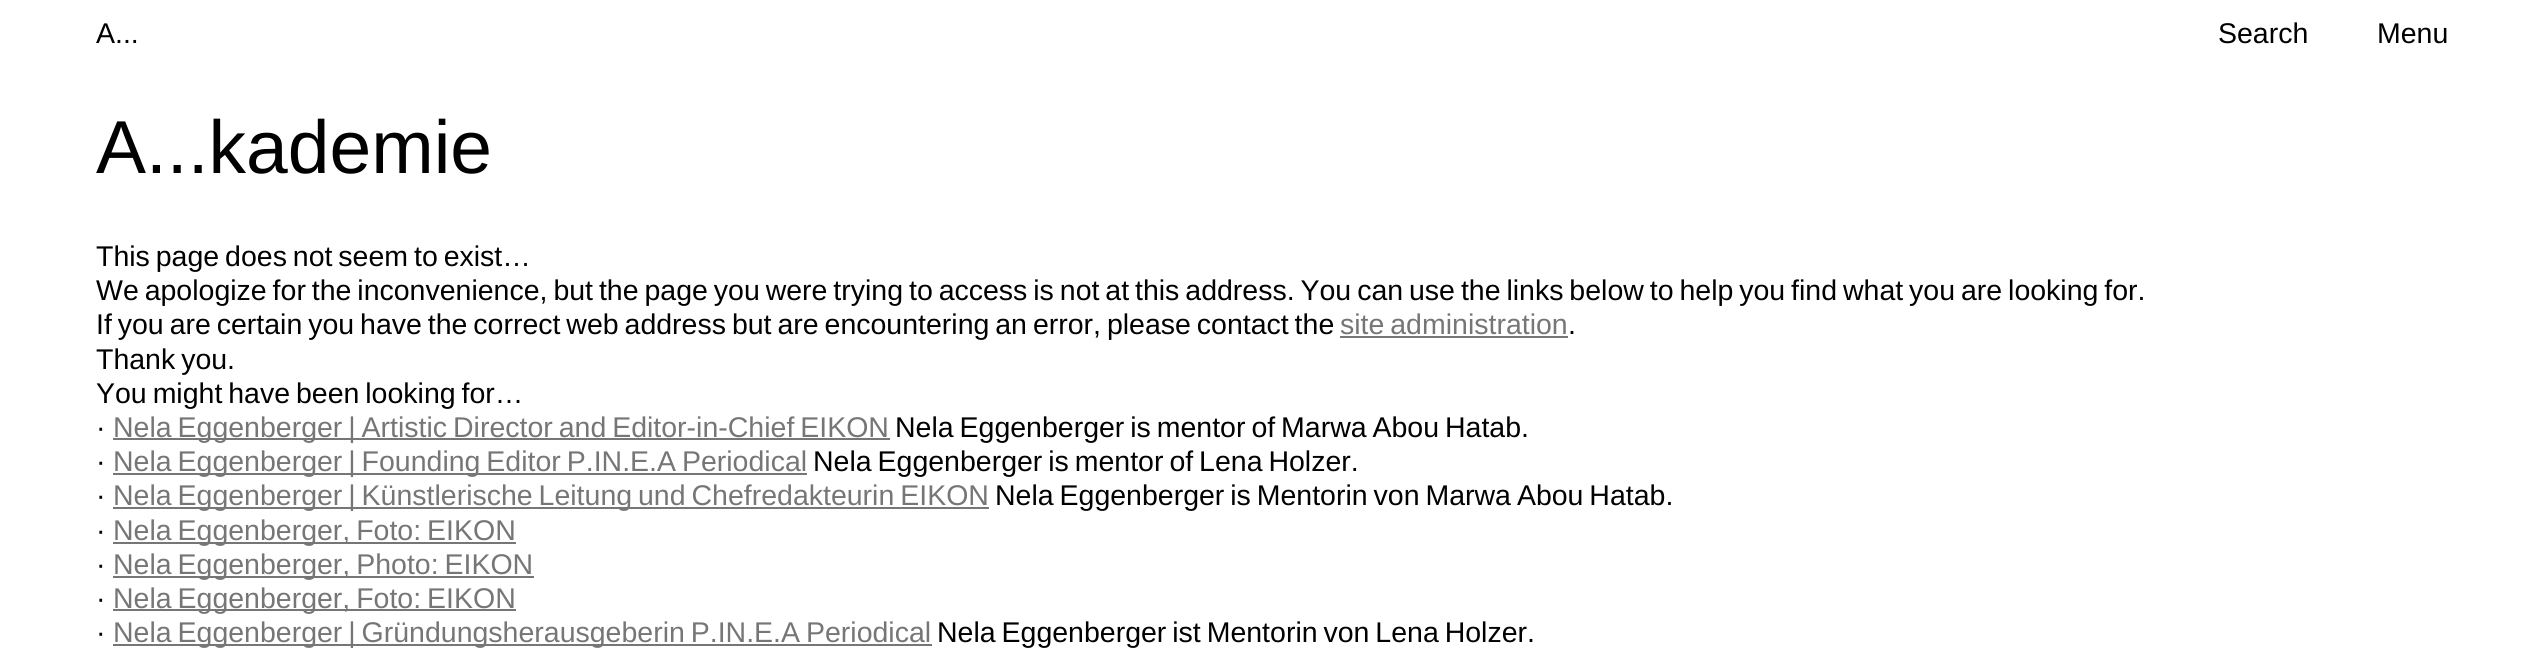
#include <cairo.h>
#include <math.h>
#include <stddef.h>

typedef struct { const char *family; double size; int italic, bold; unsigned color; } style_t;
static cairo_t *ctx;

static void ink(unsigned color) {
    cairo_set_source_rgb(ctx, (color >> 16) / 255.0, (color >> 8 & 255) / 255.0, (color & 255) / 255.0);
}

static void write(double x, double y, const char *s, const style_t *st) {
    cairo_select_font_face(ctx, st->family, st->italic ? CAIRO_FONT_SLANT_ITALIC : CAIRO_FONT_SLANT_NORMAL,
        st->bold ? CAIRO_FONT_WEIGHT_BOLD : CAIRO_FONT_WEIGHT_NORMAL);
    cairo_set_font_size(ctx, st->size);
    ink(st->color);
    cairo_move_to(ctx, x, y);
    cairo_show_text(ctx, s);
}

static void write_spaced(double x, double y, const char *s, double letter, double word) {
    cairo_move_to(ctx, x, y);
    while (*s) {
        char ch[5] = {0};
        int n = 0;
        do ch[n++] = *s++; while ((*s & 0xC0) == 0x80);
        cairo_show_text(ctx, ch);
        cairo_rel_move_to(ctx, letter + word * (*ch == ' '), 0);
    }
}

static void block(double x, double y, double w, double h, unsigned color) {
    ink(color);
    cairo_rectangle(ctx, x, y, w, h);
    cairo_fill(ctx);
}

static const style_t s1 = {"Liberation Sans", 28.5, 0, 0, 0x000000};
static const style_t s2 = {"Liberation Sans", 75, 0, 0, 0x000000};

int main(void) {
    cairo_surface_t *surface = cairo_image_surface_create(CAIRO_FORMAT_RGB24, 2543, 651);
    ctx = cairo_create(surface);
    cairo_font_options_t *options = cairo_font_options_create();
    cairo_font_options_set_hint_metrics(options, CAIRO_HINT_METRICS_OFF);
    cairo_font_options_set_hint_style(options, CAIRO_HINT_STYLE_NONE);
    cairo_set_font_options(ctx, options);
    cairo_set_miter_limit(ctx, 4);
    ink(0xffffff);
    cairo_paint(ctx);
    write(96, 43, "A...", &s1);
    write(2218, 43, "Search", &s1);
    write(2377, 43, "Menu", &s1);
    write(96, 173, "A...kademie", &s2);
    cairo_set_font_size(ctx, 28.5);
    write_spaced(96, 266, "This page does not seem to exist…", 0, -2);
    write_spaced(96, 300, "We apologize for the inconvenience, but the page you were trying to access is not at this address. You can use the links below to help you find what you are looking for.", 0, -2);
    write_spaced(96, 334, "If you are certain you have the correct web address but are encountering an error, please contact the", 0, -2);
    ink(0x767676);
    write_spaced(1340, 334, "site administration", 0, -2);
    block(1340, 336, 228, 2, 0x767676);
    write(1568, 334, ".", &s1);
    write_spaced(96, 369, "Thank you.", 0, -2);
    write_spaced(96, 403, "You might have been looking for…", 0, -2);
    write(96, 437, "·", &s1);
    block(113, 438, 777, 2, 0x767676);
    write_spaced(113, 437, "Nela Eggenberger | Artistic Director and Editor-in-Chief EIKON", 0, -2);
    ink(0x000000);
    write_spaced(895, 437, "Nela Eggenberger is mentor of Marwa Abou Hatab.", 0, -2);
    write(96, 471, "·", &s1);
    block(113, 473, 694, 2, 0x767676);
    write_spaced(113, 471, "Nela Eggenberger | Founding Editor P.IN.E.A Periodical", 0, -2);
    ink(0x000000);
    write_spaced(813, 471, "Nela Eggenberger is mentor of Lena Holzer.", 0, -2);
    write(96, 505, "·", &s1);
    block(113, 507, 876, 2, 0x767676);
    write_spaced(113, 505, "Nela Eggenberger | Künstlerische Leitung und Chefredakteurin EIKON", 0, -2);
    ink(0x000000);
    write_spaced(995, 505, "Nela Eggenberger is Mentorin von Marwa Abou Hatab.", 0, -2);
    write(96, 540, "·", &s1);
    block(113, 542, 403, 2, 0x767676);
    write_spaced(113, 540, "Nela Eggenberger, Foto: EIKON", 0, -2);
    write(96, 574, "·", &s1);
    block(113, 576, 421, 2, 0x767676);
    write_spaced(113, 574, "Nela Eggenberger, Photo: EIKON", 0, -2);
    write(96, 608, "·", &s1);
    block(113, 609, 403, 2, 0x767676);
    write_spaced(113, 608, "Nela Eggenberger, Foto: EIKON", 0, -2);
    write(96, 642, "·", &s1);
    block(113, 644, 819, 2, 0x767676);
    write_spaced(113, 642, "Nela Eggenberger | Gründungsherausgeberin P.IN.E.A Periodical", 0, -2);
    ink(0x000000);
    write_spaced(937, 642, "Nela Eggenberger ist Mentorin von Lena Holzer.", 0, -2);
    cairo_surface_write_to_png(surface, "screenshot.png");
    cairo_font_options_destroy(options);
    cairo_destroy(ctx);
    cairo_surface_destroy(surface);
    return 0;
}
